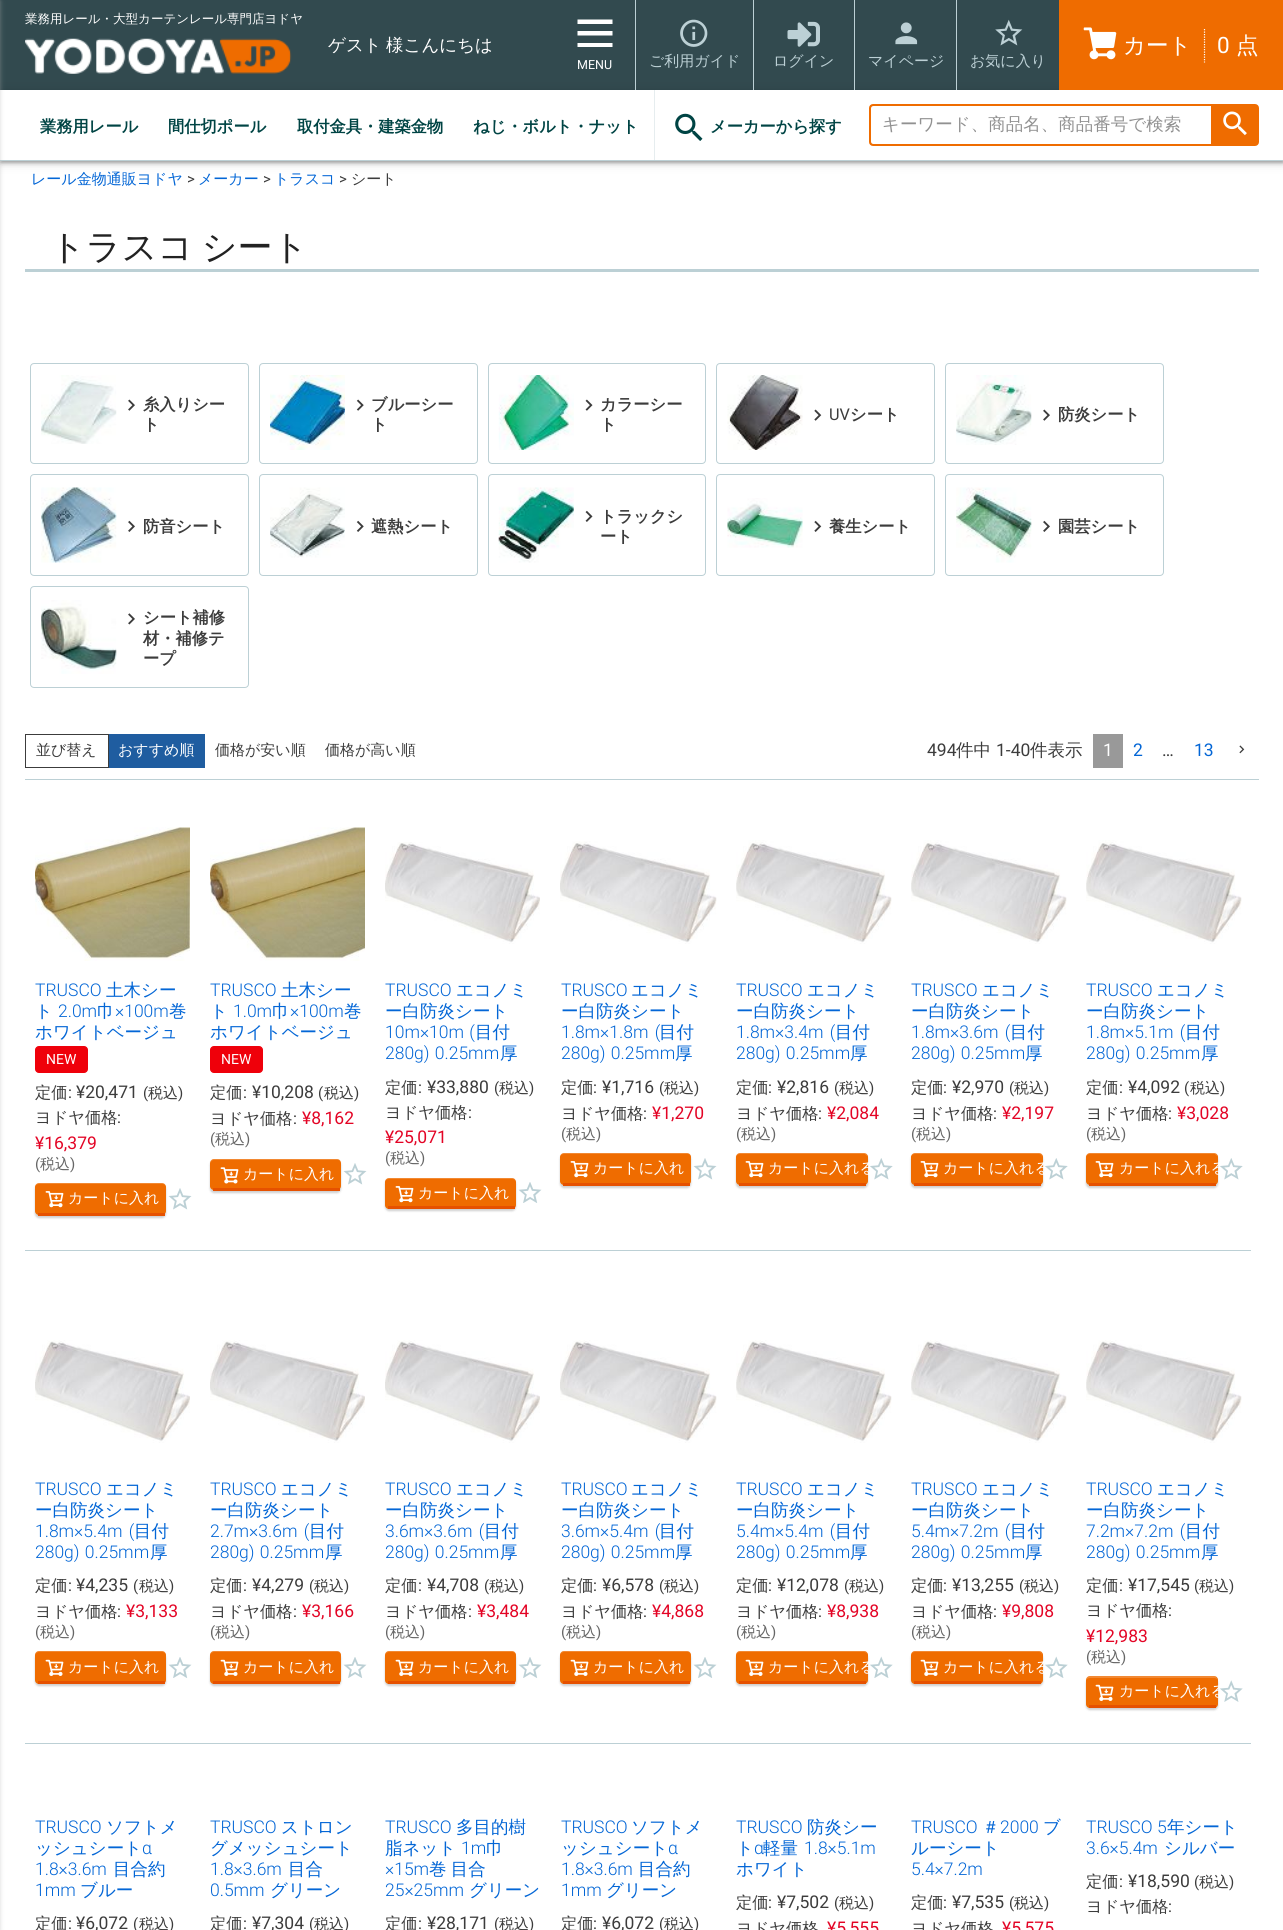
#include <cairo.h>
#include <math.h>
#include <stddef.h>

typedef struct { const char *family; double size; int italic, bold; unsigned color; } style_t;
static cairo_t *ctx;

static void ink(unsigned color) {
    cairo_set_source_rgb(ctx, (color >> 16) / 255.0, (color >> 8 & 255) / 255.0, (color & 255) / 255.0);
}

static void write(double x, double y, const char *s, const style_t *st) {
    cairo_select_font_face(ctx, st->family, st->italic ? CAIRO_FONT_SLANT_ITALIC : CAIRO_FONT_SLANT_NORMAL,
        st->bold ? CAIRO_FONT_WEIGHT_BOLD : CAIRO_FONT_WEIGHT_NORMAL);
    cairo_set_font_size(ctx, st->size);
    ink(st->color);
    cairo_move_to(ctx, x, y);
    cairo_show_text(ctx, s);
}

static void write_spaced(double x, double y, const char *s, double letter, double word) {
    cairo_move_to(ctx, x, y);
    while (*s) {
        char ch[5] = {0};
        int n = 0;
        do ch[n++] = *s++; while ((*s & 0xC0) == 0x80);
        cairo_show_text(ctx, ch);
        cairo_rel_move_to(ctx, letter + word * (*ch == ' '), 0);
    }
}

static void block(double x, double y, double w, double h, unsigned color) {
    ink(color);
    cairo_rectangle(ctx, x, y, w, h);
    cairo_fill(ctx);
}

static void round_path(double x, double y, double w, double h, double r) {
    cairo_new_sub_path(ctx);
    cairo_arc(ctx, x + w - r, y + h - r, r, 0, M_PI / 2);
    cairo_arc(ctx, x + r, y + h - r, r, M_PI / 2, M_PI);
    cairo_arc(ctx, x + r, y + r, r, M_PI, 1.5 * M_PI);
    cairo_arc(ctx, x + w - r, y + r, r, 1.5 * M_PI, 2 * M_PI);
    cairo_close_path(ctx);
}

static void blur_box(double x, double y, double w, double h, double r, double blur, double alpha) {
    cairo_push_group_with_content(ctx, CAIRO_CONTENT_ALPHA);
    cairo_set_operator(ctx, CAIRO_OPERATOR_SOURCE);
    for (int i = 15; i >= -15 && fmin(w, h) + blur * i / 3 > 0; i -= 2) {
        double e = blur * i / 6;
        cairo_set_source_rgba(ctx, 0, 0, 0, alpha * erfc((i - 1) / 8.5) / 2);
        round_path(x - e, y - e, w + 2 * e, h + 2 * e, fmax(0, fmin(r + e + blur * .6, fmin(w, h) / 2 + e)));
        cairo_fill(ctx);
    }
    cairo_pattern_t *soft = cairo_pop_group(ctx);
    cairo_mask(ctx, soft);
    cairo_pattern_destroy(soft);
}

static void paste(const char *path, double x, double y, double w, double h) {
    cairo_surface_t *image = cairo_image_surface_create_from_png(path);
    cairo_save(ctx);
    cairo_set_source_surface(ctx, image, x, y);
    cairo_rectangle(ctx, x, y, w, h);
    cairo_fill(ctx);
    cairo_restore(ctx);
    cairo_surface_destroy(image);
}

static const style_t s1 = {"WenQuanYi Zen Hei Medium", 12.5, 0, 0, 0xffffff};
static const style_t s2 = {"Roboto", 12.5, 0, 0, 0xffffff};
static const style_t s3 = {"WenQuanYi Zen Hei Medium", 15, 0, 0, 0xbcd0d5};
static const style_t s4 = {"WenQuanYi Zen Hei Medium", 22.5, 0, 0, 0xffffff};
static const style_t s5 = {"Roboto", 22.5, 0, 0, 0xffffff};
static const style_t s6 = {"WenQuanYi Zen Hei", 16.25, 0, 1, 0x004444};
static const style_t s7 = {"WenQuanYi Zen Hei Medium", 17.5, 0, 0, 0x919191};
static const style_t s8 = {"WenQuanYi Zen Hei Medium", 15, 0, 0, 0x0366d6};
static const style_t s9 = {"Roboto", 15, 0, 0, 0x3c3c3c};
static const style_t s10 = {"WenQuanYi Zen Hei Medium", 15, 0, 0, 0x3c3c3c};
static const style_t s11 = {"WenQuanYi Zen Hei", 16.25, 0, 1, 0x3c3c3c};
static const style_t s12 = {"Roboto", 16.25, 0, 0, 0x3c3c3c};
static const style_t s13 = {"WenQuanYi Zen Hei Medium", 15, 0, 0, 0xffffff};
static const style_t s14 = {"Roboto", 17.5, 0, 0, 0x3c3c3c};
static const style_t s15 = {"WenQuanYi Zen Hei Medium", 17.5, 0, 0, 0x3c3c3c};
static const style_t s16 = {"Roboto", 17.5, 0, 0, 0xffffff};
static const style_t s17 = {"Roboto", 17.5, 0, 0, 0x0366d6};
static const style_t s18 = {"Roboto Light", 17.5, 0, 0, 0x0366d6};
static const style_t s19 = {"WenQuanYi Zen Hei Medium", 17.5, 0, 0, 0x0366d6};
static const style_t s20 = {"Roboto", 14, 0, 0, 0xffffff};
static const style_t s21 = {"WenQuanYi Zen Hei Medium", 16.25, 0, 0, 0x3c3c3c};
static const style_t s22 = {"Roboto", 17.5, 0, 0, 0xe30425};
static const style_t s23 = {"Roboto", 15, 0, 0, 0x666666};
static const style_t s24 = {"WenQuanYi Zen Hei Medium", 15, 0, 0, 0x666666};

int main(void) {
    cairo_surface_t *surface = cairo_image_surface_create(CAIRO_FORMAT_RGB24, 1283, 1930);
    ctx = cairo_create(surface);
    cairo_font_options_t *options = cairo_font_options_create();
    cairo_font_options_set_hint_metrics(options, CAIRO_HINT_METRICS_OFF);
    cairo_font_options_set_hint_style(options, CAIRO_HINT_STYLE_NONE);
    cairo_set_font_options(ctx, options);
    cairo_set_miter_limit(ctx, 4);
    ink(0xffffff);
    cairo_paint(ctx);
    block(0, 0, 1059, 90, 0x324a4f);
    write(25, 23, "業務用レール・大型カーテンレール専門店ヨドヤ", &s1);
    ink(0x000000);
    blur_box(0, 91, 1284, 72, 0, 6, 0.12);
    paste("pic1.png", 25, 38, 267, 36);
    cairo_set_font_size(ctx, 17.5);
    ink(0xffffff);
    write_spaced(328, 51, "ゲスト 様こんにちは", 0, -1);
    cairo_new_path(ctx);
    cairo_move_to(ctx, 577.5, 19.5);
    cairo_line_to(ctx, 612.5, 19.5);
    cairo_line_to(ctx, 612.5, 24);
    cairo_line_to(ctx, 577.5, 24);
    cairo_close_path(ctx);
    cairo_move_to(ctx, 577.5, 31);
    cairo_line_to(ctx, 612.5, 31);
    cairo_line_to(ctx, 612.5, 35.5);
    cairo_line_to(ctx, 577.5, 35.5);
    cairo_close_path(ctx);
    cairo_move_to(ctx, 577.5, 43);
    cairo_line_to(ctx, 612.5, 43);
    cairo_line_to(ctx, 612.5, 47);
    cairo_line_to(ctx, 577.5, 47);
    cairo_close_path(ctx);
    cairo_fill(ctx);
    write(577, 69, "MENU", &s2);
    ink(0x000000);
    blur_box(1, 94, 1282, 69, 0, 2.5, 0.2);
    blur_box(0, 91, 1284, 72, 0, 1, 0.14);
    block(635, 0, 1, 90, 0xbcd0d5);
    paste("pic2.png", 680, 19, 28, 28);
    write(649, 66, "ご利用ガイド", &s3);
    block(1059, 0, 224, 90, 0xef6c00);
    paste("pic3.png", 1083, 27, 34, 33);
    write(1123, 53, "カート", &s4);
    cairo_new_path(ctx);
    cairo_move_to(ctx, 1204.5, 29);
    cairo_line_to(ctx, 1204.5, 62.5);
    cairo_set_line_width(ctx, 1.2);
    cairo_set_dash(ctx, (double[]){1.25, 1.25}, 2, 0);
    cairo_stroke(ctx);
    write(1217, 53, "0", &s5);
    write(1236, 53, "点", &s4);
    block(753, 0, 1, 90, 0xbcd0d5);
    paste("pic4.png", 787, 21, 33, 26);
    write(773, 66, "ログイン", &s3);
    block(854, 0, 1, 90, 0xbcd0d5);
    paste("pic5.png", 895, 22, 23, 23);
    write(868, 66, "マイページ", &s3);
    block(956, 0, 1, 90, 0xbcd0d5);
    paste("pic6.png", 995, 19, 28, 27);
    write(970, 66, "お気に入り", &s3);
    block(0, 90, 1283, 70, 0xffffff);
    block(0, 160, 1283, 1, 0xbcd0d5);
    write(40, 132, "業務用レール", &s6);
    write(168, 132, "間仕切ポール", &s6);
    write(297, 132, "取付金具・建築金物", &s6);
    write(473, 132, "ねじ・ボルト・ナット", &s6);
    block(654, 90, 1, 70, 0xe6edef);
    paste("pic7.png", 675, 113, 28, 28);
    write(710, 132, "メーカーから探す", &s6);
    ink(0xef6c00);
    round_path(870.5, 105.5, 387, 39, 2.5);
    cairo_fill_preserve(ctx);
    cairo_set_line_width(ctx, 3);
    cairo_set_dash(ctx, NULL, 0, 0);
    cairo_stroke(ctx);
    ink(0xffffff);
    cairo_new_path(ctx);
    cairo_move_to(ctx, 873.5, 106);
    cairo_line_to(ctx, 1211, 106);
    cairo_line_to(ctx, 1211, 144);
    cairo_line_to(ctx, 873.5, 144);
    cairo_curve_to(ctx, 872, 144, 871, 143, 871, 141.5);
    cairo_line_to(ctx, 871, 108.5);
    cairo_curve_to(ctx, 871, 107, 872, 106, 873.5, 106);
    cairo_close_path(ctx);
    cairo_fill(ctx);
    write(882, 130, "キーワード、商品名、商品番号で検索", &s7);
    paste("pic8.png", 1223, 111, 24, 25);
    write(31, 184, "レール金物通販ヨドヤ", &s8);
    write(187, 184, ">", &s9);
    write(198, 184, "メーカー", &s8);
    write(263, 184, ">", &s9);
    write(274, 184, "トラスコ", &s8);
    write(339, 184, ">", &s9);
    write(351, 184, "シート", &s10);
    ink(0xb2b2b2);
    blur_box(-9, 1, 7, 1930, 0, 3, 1);
    block(25, 269, 1234, 3, 0xbcd0d5);
    cairo_set_font_size(ctx, 35);
    ink(0x222222);
    write_spaced(50, 259, "トラスコ シート", 0, -2);
    round_path(30.5, 363.5, 218, 100, 3.5);
    ink(0xbcd0d5);
    cairo_set_line_width(ctx, 1);
    cairo_stroke(ctx);
    paste("pic9.png", 41, 375, 76, 69);
    paste("pic10.png", 128, 399, 7, 12);
    write(143, 410, "糸入りシー", &s11);
    write(143, 430, "ト", &s11);
    round_path(259.5, 363.5, 218, 100, 3.5);
    ink(0xbcd0d5);
    cairo_stroke(ctx);
    paste("pic11.png", 270, 375, 75, 75);
    paste("pic12.png", 356, 399, 8, 12);
    write(371, 410, "ブルーシー", &s11);
    write(371, 430, "ト", &s11);
    round_path(488.5, 363.5, 217, 100, 3.5);
    ink(0xbcd0d5);
    cairo_stroke(ctx);
    paste("pic13.png", 498, 375, 76, 75);
    paste("pic14.png", 585, 399, 8, 12);
    write(600, 410, "カラーシー", &s11);
    write(600, 430, "ト", &s11);
    round_path(716.5, 363.5, 218, 100, 3.5);
    ink(0xbcd0d5);
    cairo_stroke(ctx);
    paste("pic15.png", 727, 375, 76, 75);
    paste("pic16.png", 814, 409, 8, 12);
    write(829, 420, "UV", &s12);
    write(850, 420, "シート", &s11);
    round_path(945.5, 363.5, 218, 100, 3.5);
    ink(0xbcd0d5);
    cairo_stroke(ctx);
    paste("pic17.png", 956, 375, 76, 70);
    paste("pic10.png", 1043, 409, 7, 12);
    write(1058, 420, "防炎シート", &s11);
    round_path(30.5, 474.5, 218, 101, 3.5);
    ink(0xbcd0d5);
    cairo_stroke(ctx);
    paste("pic18.png", 41, 487, 76, 76);
    paste("pic19.png", 128, 520, 7, 12);
    write(143, 532, "防音シート", &s11);
    round_path(259.5, 474.5, 218, 101, 3.5);
    ink(0xbcd0d5);
    cairo_stroke(ctx);
    paste("pic20.png", 270, 487, 75, 71);
    paste("pic21.png", 356, 520, 8, 12);
    write(371, 532, "遮熱シート", &s11);
    round_path(488.5, 474.5, 217, 101, 3.5);
    ink(0xbcd0d5);
    cairo_stroke(ctx);
    paste("pic22.png", 498, 487, 76, 76);
    paste("pic23.png", 585, 510, 8, 12);
    write(600, 522, "トラックシ", &s11);
    write(600, 542, "ート", &s11);
    round_path(716.5, 474.5, 218, 101, 3.5);
    ink(0xbcd0d5);
    cairo_stroke(ctx);
    paste("pic24.png", 727, 498, 76, 50);
    paste("pic25.png", 814, 520, 8, 12);
    write(829, 532, "養生シート", &s11);
    round_path(945.5, 474.5, 218, 101, 3.5);
    ink(0xbcd0d5);
    cairo_stroke(ctx);
    paste("pic26.png", 956, 487, 76, 76);
    paste("pic19.png", 1043, 520, 7, 12);
    write(1058, 532, "園芸シート", &s11);
    round_path(30.5, 586.5, 218, 101, 3.5);
    ink(0xbcd0d5);
    cairo_stroke(ctx);
    paste("pic27.png", 41, 600, 76, 74);
    paste("pic28.png", 128, 613, 7, 12);
    write(143, 623, "シート補修", &s11);
    write(143, 644, "材・補修テ", &s11);
    write(143, 664, "ープ", &s11);
    block(25, 779, 1234, 1, 0xbcd0d5);
    cairo_rectangle(ctx, 25.5, 734.5, 83, 33);
    ink(0x3c3c3c);
    cairo_stroke(ctx);
    write(36, 755, "並び替え", &s10);
    block(109, 734, 96, 34, 0x1f5da0);
    write(118, 755, "おすすめ順", &s13);
    write(215, 755, "価格が安い順", &s10);
    write(325, 755, "価格が高い順", &s10);
    write(927, 756, "494", &s14);
    write(956, 756, "件中", &s15);
    write(996, 756, "1-40", &s14);
    write(1030, 756, "件表示", &s15);
    block(1093, 734, 30, 34, 0x999999);
    write(1103, 756, "1", &s16);
    write(1133, 756, "2", &s17);
    write(1194, 756, "13", &s17);
    paste("pic29.png", 1239, 745, 6, 9);
    write(1162, 756, "…", &s14);
    block(25, 1250, 1226, 1, 0xbcd0d5);
    paste("pic30.png", 35, 827, 155, 134);
    write(35, 996, "TRUSCO", &s18);
    write(106, 996, "土木シー", &s19);
    write(35, 1017, "ト", &s19);
    write(58, 1017, "2.0m", &s18);
    write(97, 1017, "巾", &s19);
    write(115, 1017, "×100m", &s18);
    write(169, 1017, "巻", &s19);
    write(35, 1038, "ホワイトベージュ", &s19);
    ink(0xef000a);
    round_path(35.5, 1046.5, 52, 26, 3.5);
    cairo_fill_preserve(ctx);
    cairo_stroke(ctx);
    write(46, 1064, "NEW", &s20);
    write(35, 1098, "定価", &s21);
    write(68, 1098, ":", &s12);
    write(76, 1098, "¥20,471", &s14);
    write(143, 1098, "(", &s9);
    write(148, 1098, "税込", &s10);
    write(178, 1098, ")", &s9);
    write(35, 1123, "ヨドヤ価格", &s21);
    write(117, 1123, ":", &s12);
    write(35, 1149, "¥16,379", &s22);
    write(35, 1169, "(", &s23);
    write(40, 1169, "税込", &s24);
    write(70, 1169, ")", &s23);
    ink(0x000000);
    blur_box(35, 1185, 131, 33, 4, 1, 0.19);
    ink(0xef6c00);
    round_path(35, 1183, 131, 32, 4);
    cairo_fill(ctx);
    cairo_set_source_rgba(ctx, 1, 1, 1, 0.2);
    cairo_new_path(ctx);
    cairo_move_to(ctx, 39, 1184);
    cairo_line_to(ctx, 162, 1184);
    cairo_curve_to(ctx, 165, 1184, 166, 1185, 166, 1188);
    cairo_line_to(ctx, 166, 1212);
    cairo_line_to(ctx, 166, 1199);
    cairo_curve_to(ctx, 166, 1177, 168, 1182, 142, 1182);
    cairo_line_to(ctx, 39, 1182);
    cairo_curve_to(ctx, 36, 1183, 35, 1185, 35, 1188);
    cairo_curve_to(ctx, 35, 1185, 37, 1184, 39, 1184);
    cairo_close_path(ctx);
    cairo_fill(ctx);
    block(38, 1213, 127, 3, 0xe65100);
    paste("pic31.png", 45, 1191, 19, 17);
    write(68, 1203, "カートに入れ", &s13);
    paste("pic32.png", 168, 1188, 24, 22);
    paste("pic33.png", 210, 827, 155, 134);
    write(210, 996, "TRUSCO", &s18);
    write(281, 996, "土木シー", &s19);
    write(210, 1017, "ト", &s19);
    write(233, 1017, "1.0m", &s18);
    write(272, 1017, "巾", &s19);
    write(290, 1017, "×100m", &s18);
    write(344, 1017, "巻", &s19);
    write(210, 1038, "ホワイトベージュ", &s19);
    ink(0xef000a);
    round_path(210.5, 1046.5, 52, 26, 3.5);
    cairo_fill_preserve(ctx);
    cairo_stroke(ctx);
    write(221, 1064, "NEW", &s20);
    write(210, 1098, "定価", &s21);
    write(243, 1098, ":", &s12);
    write(252, 1098, "¥10,208", &s14);
    write(318, 1098, "(", &s9);
    write(324, 1098, "税込", &s10);
    write(354, 1098, ")", &s9);
    write(210, 1124, "ヨドヤ価格", &s21);
    write(293, 1124, ":", &s12);
    write(302, 1124, "¥8,162", &s22);
    write(210, 1144, "(", &s23);
    write(215, 1144, "税込", &s24);
    write(245, 1144, ")", &s23);
    ink(0x000000);
    blur_box(210, 1161, 131, 32, 4, 1, 0.19);
    ink(0xef6c00);
    round_path(210, 1159, 131, 31, 4);
    cairo_fill(ctx);
    cairo_set_source_rgba(ctx, 1, 1, 1, 0.2);
    cairo_new_path(ctx);
    cairo_move_to(ctx, 214, 1160);
    cairo_line_to(ctx, 338, 1160);
    cairo_curve_to(ctx, 340, 1160, 341, 1162, 341, 1164);
    cairo_line_to(ctx, 341, 1187);
    cairo_line_to(ctx, 341, 1162);
    cairo_curve_to(ctx, 341, 1160, 340, 1159, 338, 1159);
    cairo_line_to(ctx, 214, 1159);
    cairo_curve_to(ctx, 212, 1159, 210, 1160, 210, 1162);
    cairo_line_to(ctx, 210, 1164);
    cairo_curve_to(ctx, 210, 1162, 212, 1160, 214, 1160);
    cairo_close_path(ctx);
    cairo_fill(ctx);
    block(213, 1188, 127, 3, 0xe65100);
    paste("pic34.png", 220, 1167, 19, 17);
    write(243, 1179, "カートに入れ", &s13);
    paste("pic32.png", 343, 1163, 24, 22);
    paste("pic35.png", 385, 842, 155, 102);
    write(385, 996, "TRUSCO", &s18);
    write(456, 996, "エコノミ", &s19);
    write(385, 1017, "ー白防炎シート", &s19);
    cairo_select_font_face(ctx, "Roboto Light", CAIRO_FONT_SLANT_NORMAL, CAIRO_FONT_WEIGHT_NORMAL);
    write_spaced(385, 1038, "10m×10m (", 0, 1);
    write(475, 1038, "目付", &s19);
    cairo_select_font_face(ctx, "Roboto Light", CAIRO_FONT_SLANT_NORMAL, CAIRO_FONT_WEIGHT_NORMAL);
    write_spaced(385, 1059, "280g) 0.25mm", 0, 1);
    write(500, 1059, "厚", &s19);
    write(385, 1093, "定価", &s21);
    write(418, 1093, ":", &s12);
    write(427, 1093, "¥33,880", &s14);
    write(494, 1093, "(", &s9);
    write(499, 1093, "税込", &s10);
    write(529, 1093, ")", &s9);
    write(385, 1118, "ヨドヤ価格", &s21);
    write(468, 1118, ":", &s12);
    write(385, 1143, "¥25,071", &s22);
    write(385, 1163, "(", &s23);
    write(390, 1163, "税込", &s24);
    write(420, 1163, ")", &s23);
    ink(0x000000);
    blur_box(385, 1180, 131, 31, 4, 1, 0.19);
    ink(0xef6c00);
    round_path(385, 1178, 131, 31, 4);
    cairo_fill(ctx);
    cairo_set_source_rgba(ctx, 1, 1, 1, 0.2);
    cairo_new_path(ctx);
    cairo_move_to(ctx, 389, 1179);
    cairo_line_to(ctx, 512, 1179);
    cairo_curve_to(ctx, 515, 1179, 516, 1180, 516, 1182);
    cairo_line_to(ctx, 516, 1205);
    cairo_line_to(ctx, 516, 1185);
    cairo_curve_to(ctx, 516, 1182, 517, 1178, 512, 1178);
    cairo_line_to(ctx, 388, 1178);
    cairo_curve_to(ctx, 386, 1178, 385, 1180, 385, 1182);
    cairo_curve_to(ctx, 385, 1180, 387, 1179, 389, 1179);
    cairo_close_path(ctx);
    cairo_fill(ctx);
    block(388, 1206, 127, 3, 0xe65100);
    paste("pic31.png", 395, 1186, 19, 17);
    write(418, 1198, "カートに入れ", &s13);
    paste("pic36.png", 518, 1182, 24, 21);
    paste("pic37.png", 560, 841, 157, 103);
    write(561, 996, "TRUSCO", &s18);
    write(631, 996, "エコノミ", &s19);
    write(561, 1017, "ー白防炎シート", &s19);
    cairo_select_font_face(ctx, "Roboto Light", CAIRO_FONT_SLANT_NORMAL, CAIRO_FONT_WEIGHT_NORMAL);
    write_spaced(561, 1038, "1.8m×1.8m (", 0, 2);
    write(659, 1038, "目付", &s19);
    cairo_select_font_face(ctx, "Roboto Light", CAIRO_FONT_SLANT_NORMAL, CAIRO_FONT_WEIGHT_NORMAL);
    write_spaced(561, 1059, "280g) 0.25mm", 0, 1);
    write(675, 1059, "厚", &s19);
    write(561, 1093, "定価", &s21);
    write(593, 1093, ":", &s12);
    write(602, 1093, "¥1,716", &s14);
    write(659, 1093, "(", &s9);
    write(664, 1093, "税込", &s10);
    write(694, 1093, ")", &s9);
    write(561, 1119, "ヨドヤ価格", &s21);
    write(643, 1119, ":", &s12);
    write(652, 1119, "¥1,270", &s22);
    write(561, 1139, "(", &s23);
    write(566, 1139, "税込", &s24);
    write(596, 1139, ")", &s23);
    ink(0x000000);
    blur_box(560, 1155, 131, 33, 4, 1, 0.19);
    ink(0xef6c00);
    round_path(560, 1153, 131, 32, 4);
    cairo_fill(ctx);
    cairo_set_source_rgba(ctx, 1, 1, 1, 0.2);
    cairo_new_path(ctx);
    cairo_move_to(ctx, 564, 1154);
    cairo_line_to(ctx, 688, 1154);
    cairo_curve_to(ctx, 690, 1154, 691, 1155, 691, 1158);
    cairo_line_to(ctx, 691, 1182);
    cairo_line_to(ctx, 691, 1169);
    cairo_curve_to(ctx, 691, 1147, 693, 1152, 667, 1152);
    cairo_line_to(ctx, 564, 1152);
    cairo_curve_to(ctx, 561, 1153, 560, 1155, 560, 1158);
    cairo_curve_to(ctx, 560, 1155, 562, 1154, 564, 1154);
    cairo_close_path(ctx);
    cairo_fill(ctx);
    block(563, 1183, 127, 3, 0xe65100);
    paste("pic31.png", 570, 1161, 19, 17);
    write(593, 1173, "カートに入れ", &s13);
    paste("pic32.png", 693, 1158, 24, 22);
    paste("pic38.png", 736, 840, 156, 104);
    write(736, 996, "TRUSCO", &s18);
    write(807, 996, "エコノミ", &s19);
    write(736, 1017, "ー白防炎シート", &s19);
    cairo_select_font_face(ctx, "Roboto Light", CAIRO_FONT_SLANT_NORMAL, CAIRO_FONT_WEIGHT_NORMAL);
    write_spaced(736, 1038, "1.8m×3.4m (", 0, 2);
    write(835, 1038, "目付", &s19);
    cairo_select_font_face(ctx, "Roboto Light", CAIRO_FONT_SLANT_NORMAL, CAIRO_FONT_WEIGHT_NORMAL);
    write_spaced(736, 1059, "280g) 0.25mm", 0, 1);
    write(850, 1059, "厚", &s19);
    write(736, 1093, "定価", &s21);
    write(768, 1093, ":", &s12);
    write(777, 1093, "¥2,816", &s14);
    write(834, 1093, "(", &s9);
    write(839, 1093, "税込", &s10);
    write(869, 1093, ")", &s9);
    write(736, 1119, "ヨドヤ価格", &s21);
    write(818, 1119, ":", &s12);
    write(827, 1119, "¥2,084", &s22);
    write(736, 1139, "(", &s23);
    write(741, 1139, "税込", &s24);
    write(771, 1139, ")", &s23);
    ink(0x000000);
    blur_box(736, 1155, 132, 33, 4, 1, 0.19);
    ink(0xef6c00);
    round_path(736, 1153, 132, 32, 4);
    cairo_fill(ctx);
    cairo_set_source_rgba(ctx, 1, 1, 1, 0.2);
    cairo_new_path(ctx);
    cairo_move_to(ctx, 740, 1154);
    cairo_line_to(ctx, 865, 1154);
    cairo_line_to(ctx, 867, 1156);
    cairo_curve_to(ctx, 867, 1154, 866, 1153, 864, 1152);
    cairo_line_to(ctx, 740, 1152);
    cairo_line_to(ctx, 737, 1154);
    cairo_line_to(ctx, 736, 1156);
    cairo_curve_to(ctx, 737, 1155, 738, 1154, 740, 1154);
    cairo_close_path(ctx);
    cairo_fill(ctx);
    block(739, 1183, 127, 3, 0xe65100);
    paste("pic31.png", 745, 1161, 19, 17);
    write(768, 1173, "カートに入れる", &s13);
    paste("pic39.png", 870, 1158, 23, 22);
    paste("pic40.png", 911, 840, 156, 104);
    write(911, 996, "TRUSCO", &s18);
    write(982, 996, "エコノミ", &s19);
    write(911, 1017, "ー白防炎シート", &s19);
    cairo_select_font_face(ctx, "Roboto Light", CAIRO_FONT_SLANT_NORMAL, CAIRO_FONT_WEIGHT_NORMAL);
    write_spaced(911, 1038, "1.8m×3.6m (", 0, 2);
    write(1010, 1038, "目付", &s19);
    cairo_select_font_face(ctx, "Roboto Light", CAIRO_FONT_SLANT_NORMAL, CAIRO_FONT_WEIGHT_NORMAL);
    write_spaced(911, 1059, "280g) 0.25mm", 0, 1);
    write(1025, 1059, "厚", &s19);
    write(911, 1093, "定価", &s21);
    write(943, 1093, ":", &s12);
    write(952, 1093, "¥2,970", &s14);
    write(1009, 1093, "(", &s9);
    write(1014, 1093, "税込", &s10);
    write(1044, 1093, ")", &s9);
    write(911, 1119, "ヨドヤ価格", &s21);
    write(993, 1119, ":", &s12);
    write(1002, 1119, "¥2,197", &s22);
    write(911, 1139, "(", &s23);
    write(916, 1139, "税込", &s24);
    write(946, 1139, ")", &s23);
    ink(0x000000);
    blur_box(911, 1155, 132, 33, 4, 1, 0.19);
    ink(0xef6c00);
    round_path(911, 1153, 132, 32, 4);
    cairo_fill(ctx);
    cairo_set_source_rgba(ctx, 1, 1, 1, 0.2);
    cairo_new_path(ctx);
    cairo_move_to(ctx, 915, 1154);
    cairo_line_to(ctx, 1039, 1154);
    cairo_curve_to(ctx, 1041, 1154, 1042, 1155, 1042, 1158);
    cairo_line_to(ctx, 1042, 1182);
    cairo_line_to(ctx, 1042, 1181);
    cairo_line_to(ctx, 1042, 1156);
    cairo_curve_to(ctx, 1042, 1154, 1041, 1152, 1039, 1152);
    cairo_line_to(ctx, 915, 1152);
    cairo_curve_to(ctx, 913, 1152, 911, 1154, 911, 1156);
    cairo_curve_to(ctx, 912, 1155, 913, 1154, 915, 1154);
    cairo_close_path(ctx);
    cairo_fill(ctx);
    block(914, 1183, 127, 3, 0xe65100);
    paste("pic31.png", 920, 1161, 19, 17);
    write(943, 1173, "カートに入れる", &s13);
    paste("pic39.png", 1045, 1158, 23, 22);
    paste("pic38.png", 1086, 840, 156, 104);
    write(1086, 996, "TRUSCO", &s18);
    write(1157, 996, "エコノミ", &s19);
    write(1086, 1017, "ー白防炎シート", &s19);
    cairo_select_font_face(ctx, "Roboto Light", CAIRO_FONT_SLANT_NORMAL, CAIRO_FONT_WEIGHT_NORMAL);
    write_spaced(1086, 1038, "1.8m×5.1m (", 0, 2);
    write(1185, 1038, "目付", &s19);
    cairo_select_font_face(ctx, "Roboto Light", CAIRO_FONT_SLANT_NORMAL, CAIRO_FONT_WEIGHT_NORMAL);
    write_spaced(1086, 1059, "280g) 0.25mm", 0, 1);
    write(1201, 1059, "厚", &s19);
    write(1086, 1093, "定価", &s21);
    write(1119, 1093, ":", &s12);
    write(1128, 1093, "¥4,092", &s14);
    write(1184, 1093, "(", &s9);
    write(1190, 1093, "税込", &s10);
    write(1220, 1093, ")", &s9);
    write(1086, 1119, "ヨドヤ価格", &s21);
    write(1168, 1119, ":", &s12);
    write(1177, 1119, "¥3,028", &s22);
    write(1086, 1139, "(", &s23);
    write(1091, 1139, "税込", &s24);
    write(1121, 1139, ")", &s23);
    ink(0x000000);
    blur_box(1086, 1155, 132, 33, 4, 1, 0.19);
    ink(0xef6c00);
    round_path(1086, 1153, 132, 32, 4);
    cairo_fill(ctx);
    cairo_set_source_rgba(ctx, 1, 1, 1, 0.2);
    cairo_new_path(ctx);
    cairo_move_to(ctx, 1090, 1154);
    cairo_line_to(ctx, 1215, 1154);
    cairo_line_to(ctx, 1217, 1156);
    cairo_curve_to(ctx, 1217, 1154, 1216, 1153, 1214, 1152);
    cairo_line_to(ctx, 1090, 1152);
    cairo_line_to(ctx, 1087, 1154);
    cairo_line_to(ctx, 1086, 1156);
    cairo_curve_to(ctx, 1087, 1155, 1088, 1154, 1090, 1154);
    cairo_close_path(ctx);
    cairo_fill(ctx);
    block(1089, 1183, 127, 3, 0xe65100);
    paste("pic31.png", 1095, 1161, 19, 17);
    write(1119, 1173, "カートに入れる", &s13);
    paste("pic39.png", 1220, 1158, 23, 22);
    block(25, 1743, 1226, 1, 0xbcd0d5);
    paste("pic41.png", 35, 1340, 155, 103);
    write(35, 1495, "TRUSCO", &s18);
    write(106, 1495, "エコノミ", &s19);
    write(35, 1516, "ー白防炎シート", &s19);
    cairo_select_font_face(ctx, "Roboto Light", CAIRO_FONT_SLANT_NORMAL, CAIRO_FONT_WEIGHT_NORMAL);
    write_spaced(35, 1537, "1.8m×5.4m (", 0, 2);
    write(134, 1537, "目付", &s19);
    cairo_select_font_face(ctx, "Roboto Light", CAIRO_FONT_SLANT_NORMAL, CAIRO_FONT_WEIGHT_NORMAL);
    write_spaced(35, 1558, "280g) 0.25mm", 0, 1);
    write(150, 1558, "厚", &s19);
    write(35, 1591, "定価", &s21);
    write(68, 1591, ":", &s12);
    write(76, 1591, "¥4,235", &s14);
    write(133, 1591, "(", &s9);
    write(139, 1591, "税込", &s10);
    write(169, 1591, ")", &s9);
    write(35, 1617, "ヨドヤ価格", &s21);
    write(117, 1617, ":", &s12);
    write(126, 1617, "¥3,133", &s22);
    write(35, 1637, "(", &s23);
    write(40, 1637, "税込", &s24);
    write(70, 1637, ")", &s23);
    ink(0x000000);
    blur_box(35, 1654, 131, 32, 4, 1, 0.19);
    ink(0xef6c00);
    round_path(35, 1651, 131, 33, 4);
    cairo_fill(ctx);
    cairo_set_source_rgba(ctx, 1, 1, 1, 0.2);
    cairo_new_path(ctx);
    cairo_move_to(ctx, 39, 1652);
    cairo_line_to(ctx, 162, 1652);
    cairo_curve_to(ctx, 165, 1652, 166, 1654, 166, 1656);
    cairo_line_to(ctx, 166, 1680);
    cairo_line_to(ctx, 166, 1668);
    cairo_curve_to(ctx, 166, 1646, 168, 1651, 142, 1651);
    cairo_line_to(ctx, 38, 1651);
    cairo_curve_to(ctx, 36, 1652, 35, 1654, 35, 1656);
    cairo_curve_to(ctx, 35, 1654, 37, 1652, 39, 1652);
    cairo_close_path(ctx);
    cairo_fill(ctx);
    block(38, 1681, 127, 3, 0xe65100);
    paste("pic42.png", 45, 1659, 19, 17);
    write(68, 1672, "カートに入れ", &s13);
    paste("pic36.png", 168, 1657, 24, 21);
    paste("pic43.png", 210, 1340, 155, 103);
    write(210, 1495, "TRUSCO", &s18);
    write(281, 1495, "エコノミ", &s19);
    write(210, 1516, "ー白防炎シート", &s19);
    cairo_select_font_face(ctx, "Roboto Light", CAIRO_FONT_SLANT_NORMAL, CAIRO_FONT_WEIGHT_NORMAL);
    write_spaced(210, 1537, "2.7m×3.6m (", 0, 2);
    write(309, 1537, "目付", &s19);
    cairo_select_font_face(ctx, "Roboto Light", CAIRO_FONT_SLANT_NORMAL, CAIRO_FONT_WEIGHT_NORMAL);
    write_spaced(210, 1558, "280g) 0.25mm", 0, 1);
    write(325, 1558, "厚", &s19);
    write(210, 1591, "定価", &s21);
    write(243, 1591, ":", &s12);
    write(252, 1591, "¥4,279", &s14);
    write(309, 1591, "(", &s9);
    write(314, 1591, "税込", &s10);
    write(344, 1591, ")", &s9);
    write(210, 1617, "ヨドヤ価格", &s21);
    write(293, 1617, ":", &s12);
    write(302, 1617, "¥3,166", &s22);
    write(210, 1637, "(", &s23);
    write(215, 1637, "税込", &s24);
    write(245, 1637, ")", &s23);
    ink(0x000000);
    blur_box(210, 1654, 131, 32, 4, 1, 0.19);
    ink(0xef6c00);
    round_path(210, 1651, 131, 33, 4);
    cairo_fill(ctx);
    cairo_set_source_rgba(ctx, 1, 1, 1, 0.2);
    cairo_new_path(ctx);
    cairo_move_to(ctx, 214, 1652);
    cairo_line_to(ctx, 338, 1652);
    cairo_curve_to(ctx, 340, 1652, 341, 1654, 341, 1656);
    cairo_line_to(ctx, 341, 1680);
    cairo_line_to(ctx, 341, 1668);
    cairo_curve_to(ctx, 341, 1646, 343, 1651, 317, 1651);
    cairo_line_to(ctx, 213, 1651);
    cairo_curve_to(ctx, 211, 1652, 210, 1654, 210, 1656);
    cairo_curve_to(ctx, 210, 1654, 212, 1652, 214, 1652);
    cairo_close_path(ctx);
    cairo_fill(ctx);
    block(213, 1681, 127, 3, 0xe65100);
    paste("pic42.png", 220, 1659, 19, 17);
    write(243, 1672, "カートに入れ", &s13);
    paste("pic36.png", 343, 1657, 24, 21);
    paste("pic44.png", 385, 1340, 155, 103);
    write(385, 1495, "TRUSCO", &s18);
    write(456, 1495, "エコノミ", &s19);
    write(385, 1516, "ー白防炎シート", &s19);
    cairo_select_font_face(ctx, "Roboto Light", CAIRO_FONT_SLANT_NORMAL, CAIRO_FONT_WEIGHT_NORMAL);
    write_spaced(385, 1537, "3.6m×3.6m (", 0, 2);
    write(484, 1537, "目付", &s19);
    cairo_select_font_face(ctx, "Roboto Light", CAIRO_FONT_SLANT_NORMAL, CAIRO_FONT_WEIGHT_NORMAL);
    write_spaced(385, 1558, "280g) 0.25mm", 0, 1);
    write(500, 1558, "厚", &s19);
    write(385, 1591, "定価", &s21);
    write(418, 1591, ":", &s12);
    write(427, 1591, "¥4,708", &s14);
    write(484, 1591, "(", &s9);
    write(489, 1591, "税込", &s10);
    write(519, 1591, ")", &s9);
    write(385, 1617, "ヨドヤ価格", &s21);
    write(468, 1617, ":", &s12);
    write(477, 1617, "¥3,484", &s22);
    write(385, 1637, "(", &s23);
    write(390, 1637, "税込", &s24);
    write(420, 1637, ")", &s23);
    ink(0x000000);
    blur_box(385, 1654, 131, 32, 4, 1, 0.19);
    ink(0xef6c00);
    round_path(385, 1651, 131, 33, 4);
    cairo_fill(ctx);
    cairo_set_source_rgba(ctx, 1, 1, 1, 0.2);
    cairo_new_path(ctx);
    cairo_move_to(ctx, 389, 1652);
    cairo_line_to(ctx, 512, 1652);
    cairo_curve_to(ctx, 515, 1652, 516, 1654, 516, 1656);
    cairo_line_to(ctx, 516, 1680);
    cairo_line_to(ctx, 516, 1668);
    cairo_curve_to(ctx, 516, 1646, 518, 1651, 492, 1651);
    cairo_line_to(ctx, 388, 1651);
    cairo_curve_to(ctx, 386, 1652, 385, 1654, 385, 1656);
    cairo_curve_to(ctx, 385, 1654, 387, 1652, 389, 1652);
    cairo_close_path(ctx);
    cairo_fill(ctx);
    block(388, 1681, 127, 3, 0xe65100);
    paste("pic42.png", 395, 1659, 19, 17);
    write(418, 1672, "カートに入れ", &s13);
    paste("pic36.png", 518, 1657, 24, 21);
    paste("pic45.png", 560, 1340, 157, 103);
    write(561, 1495, "TRUSCO", &s18);
    write(631, 1495, "エコノミ", &s19);
    write(561, 1516, "ー白防炎シート", &s19);
    cairo_select_font_face(ctx, "Roboto Light", CAIRO_FONT_SLANT_NORMAL, CAIRO_FONT_WEIGHT_NORMAL);
    write_spaced(561, 1537, "3.6m×5.4m (", 0, 2);
    write(659, 1537, "目付", &s19);
    cairo_select_font_face(ctx, "Roboto Light", CAIRO_FONT_SLANT_NORMAL, CAIRO_FONT_WEIGHT_NORMAL);
    write_spaced(561, 1558, "280g) 0.25mm", 0, 1);
    write(675, 1558, "厚", &s19);
    write(561, 1591, "定価", &s21);
    write(593, 1591, ":", &s12);
    write(602, 1591, "¥6,578", &s14);
    write(659, 1591, "(", &s9);
    write(664, 1591, "税込", &s10);
    write(694, 1591, ")", &s9);
    write(561, 1617, "ヨドヤ価格", &s21);
    write(643, 1617, ":", &s12);
    write(652, 1617, "¥4,868", &s22);
    write(561, 1637, "(", &s23);
    write(566, 1637, "税込", &s24);
    write(596, 1637, ")", &s23);
    ink(0x000000);
    blur_box(560, 1654, 131, 32, 4, 1, 0.19);
    ink(0xef6c00);
    round_path(560, 1651, 131, 33, 4);
    cairo_fill(ctx);
    cairo_set_source_rgba(ctx, 1, 1, 1, 0.2);
    cairo_new_path(ctx);
    cairo_move_to(ctx, 564, 1652);
    cairo_line_to(ctx, 688, 1652);
    cairo_curve_to(ctx, 690, 1652, 691, 1654, 691, 1656);
    cairo_line_to(ctx, 691, 1680);
    cairo_line_to(ctx, 691, 1668);
    cairo_curve_to(ctx, 691, 1646, 693, 1651, 667, 1651);
    cairo_line_to(ctx, 563, 1651);
    cairo_curve_to(ctx, 561, 1652, 560, 1654, 560, 1656);
    cairo_curve_to(ctx, 560, 1654, 562, 1652, 564, 1652);
    cairo_close_path(ctx);
    cairo_fill(ctx);
    block(563, 1681, 127, 3, 0xe65100);
    paste("pic42.png", 570, 1659, 19, 17);
    write(593, 1672, "カートに入れ", &s13);
    paste("pic36.png", 693, 1657, 24, 21);
    paste("pic46.png", 736, 1340, 156, 103);
    write(736, 1495, "TRUSCO", &s18);
    write(807, 1495, "エコノミ", &s19);
    write(736, 1516, "ー白防炎シート", &s19);
    cairo_select_font_face(ctx, "Roboto Light", CAIRO_FONT_SLANT_NORMAL, CAIRO_FONT_WEIGHT_NORMAL);
    write_spaced(736, 1537, "5.4m×5.4m (", 0, 2);
    write(835, 1537, "目付", &s19);
    cairo_select_font_face(ctx, "Roboto Light", CAIRO_FONT_SLANT_NORMAL, CAIRO_FONT_WEIGHT_NORMAL);
    write_spaced(736, 1558, "280g) 0.25mm", 0, 1);
    write(850, 1558, "厚", &s19);
    write(736, 1591, "定価", &s21);
    write(768, 1591, ":", &s12);
    write(777, 1591, "¥12,078", &s14);
    write(844, 1591, "(", &s9);
    write(849, 1591, "税込", &s10);
    write(879, 1591, ")", &s9);
    write(736, 1617, "ヨドヤ価格", &s21);
    write(818, 1617, ":", &s12);
    write(827, 1617, "¥8,938", &s22);
    write(736, 1637, "(", &s23);
    write(741, 1637, "税込", &s24);
    write(771, 1637, ")", &s23);
    ink(0x000000);
    blur_box(736, 1654, 132, 32, 4, 1, 0.19);
    ink(0xef6c00);
    round_path(736, 1651, 132, 33, 4);
    cairo_fill(ctx);
    cairo_set_source_rgba(ctx, 1, 1, 1, 0.2);
    cairo_new_path(ctx);
    cairo_move_to(ctx, 740, 1652);
    cairo_line_to(ctx, 864, 1652);
    cairo_curve_to(ctx, 865, 1652, 867, 1653, 867, 1654);
    cairo_curve_to(ctx, 867, 1652, 865, 1651, 864, 1651);
    cairo_line_to(ctx, 740, 1651);
    cairo_curve_to(ctx, 738, 1651, 736, 1653, 736, 1655);
    cairo_curve_to(ctx, 737, 1653, 738, 1652, 740, 1652);
    cairo_close_path(ctx);
    cairo_fill(ctx);
    block(739, 1681, 127, 3, 0xe65100);
    paste("pic42.png", 745, 1659, 19, 17);
    write(768, 1672, "カートに入れる", &s13);
    paste("pic47.png", 870, 1656, 23, 22);
    paste("pic48.png", 911, 1340, 156, 103);
    write(911, 1495, "TRUSCO", &s18);
    write(982, 1495, "エコノミ", &s19);
    write(911, 1516, "ー白防炎シート", &s19);
    cairo_select_font_face(ctx, "Roboto Light", CAIRO_FONT_SLANT_NORMAL, CAIRO_FONT_WEIGHT_NORMAL);
    write_spaced(911, 1537, "5.4m×7.2m (", 0, 2);
    write(1010, 1537, "目付", &s19);
    cairo_select_font_face(ctx, "Roboto Light", CAIRO_FONT_SLANT_NORMAL, CAIRO_FONT_WEIGHT_NORMAL);
    write_spaced(911, 1558, "280g) 0.25mm", 0, 1);
    write(1025, 1558, "厚", &s19);
    write(911, 1591, "定価", &s21);
    write(943, 1591, ":", &s12);
    write(952, 1591, "¥13,255", &s14);
    write(1019, 1591, "(", &s9);
    write(1024, 1591, "税込", &s10);
    write(1054, 1591, ")", &s9);
    write(911, 1617, "ヨドヤ価格", &s21);
    write(993, 1617, ":", &s12);
    write(1002, 1617, "¥9,808", &s22);
    write(911, 1637, "(", &s23);
    write(916, 1637, "税込", &s24);
    write(946, 1637, ")", &s23);
    ink(0x000000);
    blur_box(911, 1654, 132, 32, 4, 1, 0.19);
    ink(0xef6c00);
    round_path(911, 1651, 132, 33, 4);
    cairo_fill(ctx);
    cairo_set_source_rgba(ctx, 1, 1, 1, 0.2);
    cairo_new_path(ctx);
    cairo_move_to(ctx, 915, 1652);
    cairo_line_to(ctx, 1039, 1652);
    cairo_curve_to(ctx, 1041, 1652, 1042, 1654, 1042, 1656);
    cairo_line_to(ctx, 1042, 1681);
    cairo_line_to(ctx, 1042, 1680);
    cairo_line_to(ctx, 1042, 1655);
    cairo_curve_to(ctx, 1042, 1653, 1041, 1651, 1039, 1651);
    cairo_line_to(ctx, 915, 1651);
    cairo_curve_to(ctx, 913, 1651, 911, 1653, 911, 1655);
    cairo_curve_to(ctx, 912, 1653, 913, 1652, 915, 1652);
    cairo_close_path(ctx);
    cairo_fill(ctx);
    block(914, 1681, 127, 3, 0xe65100);
    paste("pic42.png", 920, 1659, 19, 17);
    write(943, 1672, "カートに入れる", &s13);
    paste("pic47.png", 1045, 1656, 23, 22);
    paste("pic46.png", 1086, 1340, 156, 103);
    write(1086, 1495, "TRUSCO", &s18);
    write(1157, 1495, "エコノミ", &s19);
    write(1086, 1516, "ー白防炎シート", &s19);
    cairo_select_font_face(ctx, "Roboto Light", CAIRO_FONT_SLANT_NORMAL, CAIRO_FONT_WEIGHT_NORMAL);
    write_spaced(1086, 1537, "7.2m×7.2m (", 0, 2);
    write(1185, 1537, "目付", &s19);
    cairo_select_font_face(ctx, "Roboto Light", CAIRO_FONT_SLANT_NORMAL, CAIRO_FONT_WEIGHT_NORMAL);
    write_spaced(1086, 1558, "280g) 0.25mm", 0, 1);
    write(1201, 1558, "厚", &s19);
    write(1086, 1591, "定価", &s21);
    write(1119, 1591, ":", &s12);
    write(1128, 1591, "¥17,545", &s14);
    write(1194, 1591, "(", &s9);
    write(1199, 1591, "税込", &s10);
    write(1229, 1591, ")", &s9);
    write(1086, 1616, "ヨドヤ価格", &s21);
    write(1168, 1616, ":", &s12);
    write(1086, 1642, "¥12,983", &s22);
    write(1086, 1662, "(", &s23);
    write(1091, 1662, "税込", &s24);
    write(1121, 1662, ")", &s23);
    ink(0x000000);
    blur_box(1086, 1679, 132, 31, 4, 1, 0.19);
    ink(0xef6c00);
    round_path(1086, 1676, 132, 32, 4);
    cairo_fill(ctx);
    cairo_set_source_rgba(ctx, 1, 1, 1, 0.2);
    cairo_new_path(ctx);
    cairo_move_to(ctx, 1090, 1678);
    cairo_line_to(ctx, 1215, 1678);
    cairo_line_to(ctx, 1217, 1679);
    cairo_curve_to(ctx, 1217, 1678, 1216, 1676, 1214, 1676);
    cairo_line_to(ctx, 1090, 1676);
    cairo_curve_to(ctx, 1088, 1676, 1086, 1678, 1086, 1680);
    cairo_curve_to(ctx, 1087, 1679, 1088, 1678, 1090, 1678);
    cairo_close_path(ctx);
    cairo_fill(ctx);
    block(1089, 1705, 127, 3, 0xe65100);
    paste("pic42.png", 1095, 1684, 19, 17);
    write(1119, 1696, "カートに入れる", &s13);
    paste("pic49.png", 1220, 1680, 23, 22);
    write(35, 1833, "TRUSCO", &s18);
    write(106, 1833, "ソフトメ", &s19);
    write(35, 1854, "ッシュシート", &s19);
    write(142, 1854, "α", &s18);
    write(35, 1875, "1.8×3.6m", &s18);
    write(113, 1875, "目合約", &s19);
    write(35, 1896, "1mm", &s18);
    write(80, 1896, "ブルー", &s19);
    write(35, 1929, "定価", &s21);
    write(68, 1929, ":", &s12);
    write(76, 1929, "¥6,072", &s14);
    write(133, 1929, "(", &s9);
    write(139, 1929, "税込", &s10);
    write(169, 1929, ")", &s9);
    write(210, 1833, "TRUSCO", &s18);
    write(281, 1833, "ストロン", &s19);
    write(210, 1854, "グメッシュシート", &s19);
    write(210, 1875, "1.8×3.6m", &s18);
    write(288, 1875, "目合", &s19);
    write(210, 1896, "0.5mm", &s18);
    write(270, 1896, "グリーン", &s19);
    write(210, 1929, "定価", &s21);
    write(243, 1929, ":", &s12);
    write(252, 1929, "¥7,304", &s14);
    write(309, 1929, "(", &s9);
    write(314, 1929, "税込", &s10);
    write(344, 1929, ")", &s9);
    write(385, 1833, "TRUSCO", &s18);
    write(456, 1833, "多目的樹", &s19);
    write(385, 1854, "脂ネット", &s19);
    write(461, 1854, "1m", &s18);
    write(486, 1854, "巾", &s19);
    write(385, 1875, "×15m", &s18);
    cairo_select_font_face(ctx, "WenQuanYi Zen Hei Medium", CAIRO_FONT_SLANT_NORMAL, CAIRO_FONT_WEIGHT_NORMAL);
    write_spaced(429, 1875, "巻 目合", 0, -1);
    write(385, 1896, "25×25mm", &s18);
    write(469, 1896, "グリーン", &s19);
    write(385, 1929, "定価", &s21);
    write(418, 1929, ":", &s12);
    write(427, 1929, "¥28,171", &s14);
    write(494, 1929, "(", &s9);
    write(499, 1929, "税込", &s10);
    write(529, 1929, ")", &s9);
    write(561, 1833, "TRUSCO", &s18);
    write(631, 1833, "ソフトメ", &s19);
    write(561, 1854, "ッシュシート", &s19);
    write(668, 1854, "α", &s18);
    write(561, 1875, "1.8×3.6m", &s18);
    write(638, 1875, "目合約", &s19);
    write(561, 1896, "1mm", &s18);
    write(606, 1896, "グリーン", &s19);
    write(561, 1929, "定価", &s21);
    write(593, 1929, ":", &s12);
    write(602, 1929, "¥6,072", &s14);
    write(659, 1929, "(", &s9);
    write(664, 1929, "税込", &s10);
    write(694, 1929, ")", &s9);
    write(736, 1833, "TRUSCO", &s18);
    write(807, 1833, "防炎シー", &s19);
    write(736, 1854, "ト", &s19);
    write(754, 1854, "α", &s18);
    write(763, 1854, "軽量", &s19);
    write(804, 1854, "1.8×5.1m", &s18);
    write(736, 1875, "ホワイト", &s19);
    write(736, 1908, "定価", &s21);
    write(768, 1908, ":", &s12);
    write(777, 1908, "¥7,502", &s14);
    write(834, 1908, "(", &s9);
    write(839, 1908, "税込", &s10);
    write(869, 1908, ")", &s9);
    write(736, 1934, "ヨドヤ価格", &s21);
    write(827, 1934, "¥5,555", &s22);
    write(911, 1833, "TRUSCO", &s18);
    write(982, 1833, "＃", &s19);
    write(1000, 1833, "2000", &s18);
    write(1043, 1833, "ブ", &s19);
    write(911, 1854, "ルーシート", &s19);
    write(911, 1875, "5.4×7.2m", &s18);
    write(911, 1908, "定価", &s21);
    write(943, 1908, ":", &s12);
    write(952, 1908, "¥7,535", &s14);
    write(1009, 1908, "(", &s9);
    write(1014, 1908, "税込", &s10);
    write(1044, 1908, ")", &s9);
    write(911, 1934, "ヨドヤ価格", &s21);
    write(1002, 1934, "¥5,575", &s22);
    write(1086, 1833, "TRUSCO 5", &s18);
    write(1167, 1833, "年シート", &s19);
    write(1086, 1854, "3.6×5.4m", &s18);
    write(1164, 1854, "シルバー", &s19);
    write(1086, 1887, "定価", &s21);
    write(1119, 1887, ":", &s12);
    write(1128, 1887, "¥18,590", &s14);
    write(1194, 1887, "(", &s9);
    write(1199, 1887, "税込", &s10);
    write(1229, 1887, ")", &s9);
    write(1086, 1912, "ヨドヤ価格", &s21);
    write(1168, 1912, ":", &s12);
    cairo_surface_write_to_png(surface, "screenshot.png");
    cairo_font_options_destroy(options);
    cairo_destroy(ctx);
    cairo_surface_destroy(surface);
    return 0;
}
